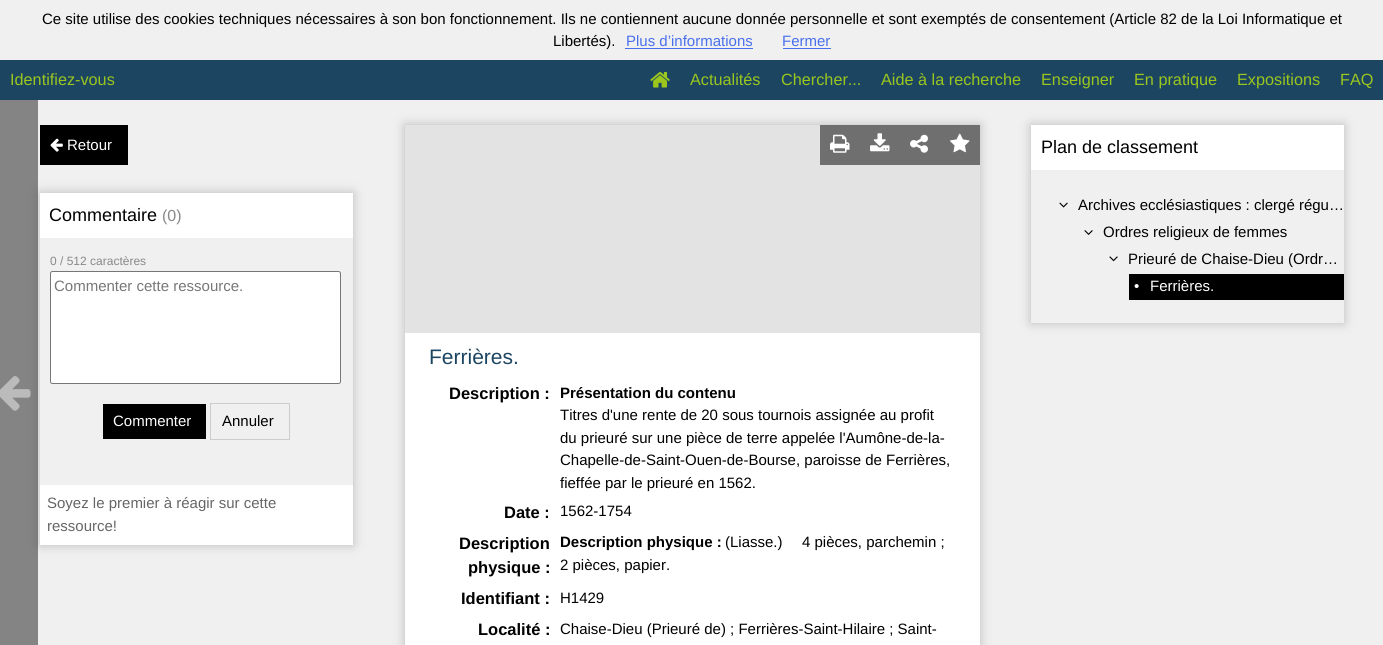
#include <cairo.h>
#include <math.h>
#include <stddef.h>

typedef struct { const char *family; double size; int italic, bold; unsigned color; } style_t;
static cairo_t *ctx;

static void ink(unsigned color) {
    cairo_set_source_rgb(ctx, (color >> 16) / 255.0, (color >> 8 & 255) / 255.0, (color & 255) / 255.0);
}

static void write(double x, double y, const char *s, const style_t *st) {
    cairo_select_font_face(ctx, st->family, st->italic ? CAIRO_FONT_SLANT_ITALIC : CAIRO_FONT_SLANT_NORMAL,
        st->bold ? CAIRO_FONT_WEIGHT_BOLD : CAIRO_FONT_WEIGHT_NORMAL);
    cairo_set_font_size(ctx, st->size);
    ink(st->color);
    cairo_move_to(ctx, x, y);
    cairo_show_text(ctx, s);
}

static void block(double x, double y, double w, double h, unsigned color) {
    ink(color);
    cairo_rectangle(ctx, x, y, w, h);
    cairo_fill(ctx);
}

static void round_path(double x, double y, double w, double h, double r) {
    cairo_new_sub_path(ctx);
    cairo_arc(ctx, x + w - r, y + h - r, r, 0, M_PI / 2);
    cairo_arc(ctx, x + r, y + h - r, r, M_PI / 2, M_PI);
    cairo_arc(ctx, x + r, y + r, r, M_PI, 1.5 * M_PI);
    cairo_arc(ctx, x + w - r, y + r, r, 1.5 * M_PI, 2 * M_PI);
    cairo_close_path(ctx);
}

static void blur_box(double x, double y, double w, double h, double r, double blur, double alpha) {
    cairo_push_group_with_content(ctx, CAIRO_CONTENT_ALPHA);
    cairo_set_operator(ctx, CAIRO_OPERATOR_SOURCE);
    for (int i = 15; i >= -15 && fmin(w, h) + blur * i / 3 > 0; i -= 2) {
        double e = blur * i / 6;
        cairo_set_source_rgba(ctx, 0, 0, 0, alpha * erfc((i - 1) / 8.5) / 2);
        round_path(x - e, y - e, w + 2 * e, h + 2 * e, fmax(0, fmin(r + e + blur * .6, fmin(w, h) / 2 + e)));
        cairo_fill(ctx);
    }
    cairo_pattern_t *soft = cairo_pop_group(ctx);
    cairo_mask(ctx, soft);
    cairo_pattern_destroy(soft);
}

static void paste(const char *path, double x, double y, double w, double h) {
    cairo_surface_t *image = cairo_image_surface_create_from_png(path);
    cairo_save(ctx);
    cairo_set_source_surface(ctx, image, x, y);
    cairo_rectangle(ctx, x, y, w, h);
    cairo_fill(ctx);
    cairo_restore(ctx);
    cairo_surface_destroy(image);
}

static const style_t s1 = {"Liberation Sans", 15, 0, 0, 0x000000};
static const style_t s2 = {"Liberation Sans", 15, 0, 0, 0x4970ec};
static const style_t s3 = {"Liberation Sans", 16.25, 0, 0, 0x9ac61e};
static const style_t s4 = {"Liberation Sans", 15, 0, 0, 0xffffff};
static const style_t s5 = {"Liberation Sans", 18, 0, 0, 0x000000};
static const style_t s6 = {"Liberation Sans", 16, 0, 0, 0x888888};
static const style_t s7 = {"Liberation Sans", 12, 0, 0, 0x888888};
static const style_t s8 = {"Liberation Sans", 15, 0, 0, 0x777777};
static const style_t s9 = {"Liberation Sans", 15, 0, 0, 0x666666};
static const style_t s10 = {"Liberation Sans", 21, 0, 0, 0x1c4561};
static const style_t s11 = {"Liberation Sans", 16.5, 0, 1, 0x000000};
static const style_t s12 = {"Liberation Sans", 15, 0, 1, 0x000000};

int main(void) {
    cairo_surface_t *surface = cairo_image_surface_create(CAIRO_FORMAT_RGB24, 1383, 645);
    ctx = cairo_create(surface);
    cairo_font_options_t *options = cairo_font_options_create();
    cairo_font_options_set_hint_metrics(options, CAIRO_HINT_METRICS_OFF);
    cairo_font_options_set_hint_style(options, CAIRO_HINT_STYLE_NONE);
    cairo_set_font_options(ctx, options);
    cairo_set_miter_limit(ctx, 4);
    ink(0xf0f0f0);
    cairo_paint(ctx);
    write(42, 24, "Ce site utilise des cookies techniques nécessaires à son bon fonctionnement. Ils ne contiennent aucune donnée personnelle et sont exemptés de consentement (Article 82 de la Loi Informatique et", &s1);
    write(553, 46, "Libertés).", &s1);
    write(626, 46, "Plus d’informations", &s2);
    block(625, 48, 128, 1, 0x4970ec);
    write(782, 46, "Fermer", &s2);
    block(783, 48, 48, 1, 0x4970ec);
    block(0, 60, 1383, 40, 0x1c4561);
    write(10, 85, "Identifiez-vous", &s3);
    paste("pic1.png", 650, 72, 20, 16);
    write(690, 85, "Actualités", &s3);
    write(781, 85, "Chercher...", &s3);
    write(881, 85, "Aide à la recherche", &s3);
    write(1041, 85, "Enseigner", &s3);
    write(1134, 85, "En pratique", &s3);
    write(1237, 85, "Expositions", &s3);
    write(1340, 85, "FAQ", &s3);
    cairo_save(ctx);
    cairo_set_fill_rule(ctx, CAIRO_FILL_RULE_EVEN_ODD);
    cairo_new_path(ctx);
    cairo_move_to(ctx, 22, 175);
    cairo_line_to(ctx, 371, 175);
    cairo_line_to(ctx, 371, 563);
    cairo_line_to(ctx, 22, 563);
    cairo_close_path(ctx);
    cairo_move_to(ctx, 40, 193);
    cairo_line_to(ctx, 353, 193);
    cairo_line_to(ctx, 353, 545);
    cairo_line_to(ctx, 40, 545);
    cairo_close_path(ctx);
    cairo_clip(ctx);
    ink(0xbbbbbb);
    blur_box(40, 193, 313, 352, 0, 5.5, 1);
    cairo_restore(ctx);
    cairo_set_source_rgba(ctx, 0, 0, 0, 0.45);
    cairo_rectangle(ctx, 0, 100, 38, 545);
    cairo_fill(ctx);
    paste("pic2.png", 0, 376, 31, 35);
    block(40, 125, 88, 40, 0x000000);
    paste("pic3.png", 50, 138, 13, 14);
    write(67, 150, "Retour", &s4);
    block(40, 193, 313, 45, 0xffffff);
    write(49, 221, "Commentaire", &s5);
    write(162, 221, "(0)", &s6);
    write(50, 265, "0 / 512 caractères", &s7);
    ink(0xffffff);
    round_path(50.5, 271.5, 290, 112, 2);
    cairo_fill_preserve(ctx);
    ink(0x767676);
    cairo_set_line_width(ctx, 1);
    cairo_stroke(ctx);
    write(54, 291, "Commenter cette ressource.", &s8);
    block(103, 404, 103, 35, 0x000000);
    write(113, 426, "Commenter", &s4);
    cairo_rectangle(ctx, 210.5, 403.5, 79, 36);
    ink(0xcccccc);
    cairo_stroke(ctx);
    write(222, 426, "Annuler", &s1);
    block(40, 485, 313, 60, 0xffffff);
    write(47, 508, "Soyez le premier à réagir sur cette", &s9);
    write(47, 531, "ressource!", &s9);
    ink(0xbbbbbb);
    blur_box(1031, 125, 313, 198, 0, 5.5, 1);
    block(1031, 125, 313, 45, 0xffffff);
    write(1041, 153, "Plan de classement", &s5);
    block(1031, 170, 313, 153, 0xf0f0f0);
    paste("pic4.png", 1059, 202, 9, 6);
    write(1078, 210, "Archives ecclésiastiques : clergé régu…", &s1);
    paste("pic5.png", 1084, 230, 9, 5);
    write(1103, 237, "Ordres religieux de femmes", &s1);
    paste("pic6.png", 1109, 256, 9, 6);
    write(1128, 264, "Prieuré de Chaise-Dieu (Ordr…", &s1);
    block(1129, 274, 215, 26, 0x000000);
    write(1134, 291, "•", &s4);
    write(1150, 291, "Ferrières.", &s4);
    ink(0xbbbbbb);
    blur_box(405, 125, 575, 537, 0, 5.5, 1);
    block(405, 333, 575, 312, 0xffffff);
    block(405, 125, 575, 208, 0xe3e3e3);
    block(820, 125, 80, 40, 0x6f6f6f);
    paste("pic7.png", 830, 134, 20, 19);
    block(900, 125, 80, 40, 0x6f6f6f);
    paste("pic8.png", 950, 133, 20, 20);
    paste("pic9.png", 870, 133, 20, 19);
    paste("pic10.png", 910, 134, 18, 19);
    write(429, 364, "Ferrières.", &s10);
    write(449, 399, "Description :", &s11);
    write(560, 398, "Présentation du contenu", &s12);
    write(560, 420, "Titres d'une rente de 20 sous tournois assignée au profit", &s1);
    write(560, 443, "du prieuré sur une pièce de terre appelée l'Aumône-de-la-", &s1);
    write(560, 465, "Chapelle-de-Saint-Ouen-de-Bourse, paroisse de Ferrières,", &s1);
    write(560, 488, "fieffée par le prieuré en 1562.", &s1);
    write(504, 518, "Date :", &s11);
    write(560, 516, "1562-1754", &s1);
    write(459, 549, "Description", &s11);
    write(468, 573, "physique :", &s11);
    write(560, 547, "Description physique :", &s12);
    write(725, 547, "(Liasse.)", &s1);
    write(802, 547, "4 pièces, parchemin ;", &s1);
    write(560, 570, "2 pièces, papier.", &s1);
    write(461, 604, "Identifiant :", &s11);
    write(560, 603, "H1429", &s1);
    write(478, 635, "Localité :", &s11);
    write(560, 634, "Chaise-Dieu (Prieuré de) ; Ferrières-Saint-Hilaire ; Saint-", &s1);
    cairo_surface_write_to_png(surface, "screenshot.png");
    cairo_font_options_destroy(options);
    cairo_destroy(ctx);
    cairo_surface_destroy(surface);
    return 0;
}
